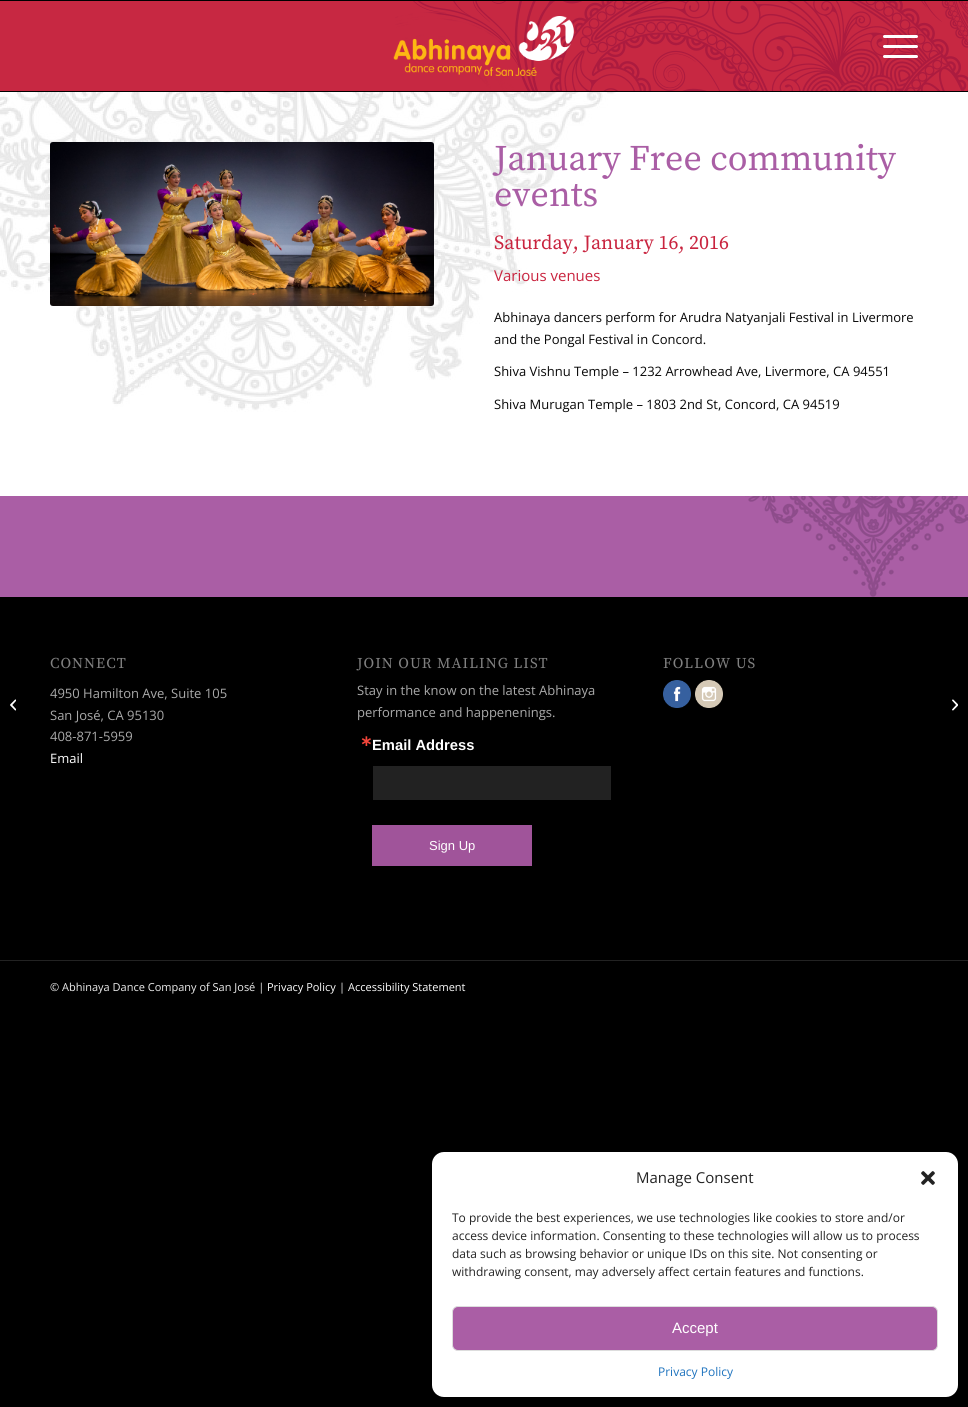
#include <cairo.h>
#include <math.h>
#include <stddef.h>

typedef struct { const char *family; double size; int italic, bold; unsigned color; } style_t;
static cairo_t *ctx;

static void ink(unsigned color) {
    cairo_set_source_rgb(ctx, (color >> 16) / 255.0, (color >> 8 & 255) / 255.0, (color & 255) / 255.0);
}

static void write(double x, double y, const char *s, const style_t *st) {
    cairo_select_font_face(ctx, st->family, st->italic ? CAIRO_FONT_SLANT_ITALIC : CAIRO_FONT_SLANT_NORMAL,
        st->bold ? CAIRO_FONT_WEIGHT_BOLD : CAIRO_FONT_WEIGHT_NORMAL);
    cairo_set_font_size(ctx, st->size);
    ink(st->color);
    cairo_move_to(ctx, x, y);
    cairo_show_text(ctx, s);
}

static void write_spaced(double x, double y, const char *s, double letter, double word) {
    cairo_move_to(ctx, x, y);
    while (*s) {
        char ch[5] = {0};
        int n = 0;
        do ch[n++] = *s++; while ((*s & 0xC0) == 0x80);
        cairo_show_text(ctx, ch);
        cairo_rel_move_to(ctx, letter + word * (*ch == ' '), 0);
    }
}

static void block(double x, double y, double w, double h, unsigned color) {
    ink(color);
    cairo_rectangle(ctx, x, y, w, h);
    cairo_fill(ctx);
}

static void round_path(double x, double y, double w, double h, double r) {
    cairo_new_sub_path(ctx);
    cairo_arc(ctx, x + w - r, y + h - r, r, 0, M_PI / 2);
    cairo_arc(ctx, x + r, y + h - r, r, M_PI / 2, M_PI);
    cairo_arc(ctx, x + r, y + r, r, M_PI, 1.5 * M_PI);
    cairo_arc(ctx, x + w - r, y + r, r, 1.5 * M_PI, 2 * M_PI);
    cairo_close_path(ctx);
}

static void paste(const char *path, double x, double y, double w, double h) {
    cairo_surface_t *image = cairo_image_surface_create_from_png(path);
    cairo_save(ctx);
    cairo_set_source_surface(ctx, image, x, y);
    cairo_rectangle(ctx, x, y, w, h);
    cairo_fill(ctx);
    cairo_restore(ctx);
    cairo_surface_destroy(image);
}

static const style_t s1 = {"Source Serif Pro", 36, 0, 0, 0xaa5ea5};
static const style_t s2 = {"Source Serif Pro", 20, 0, 0, 0xc9243f};
static const style_t s3 = {"Open Sans", 15, 0, 0, 0xc9243f};
static const style_t s4 = {"Open Sans", 13, 0, 0, 0x080808};
static const style_t s5 = {"Open Sans", 13, 0, 0, 0xaaaaaa};
static const style_t s6 = {"Open Sans", 13, 0, 0, 0xffffff};
static const style_t s7 = {"DejaVu Sans", 14.75, 0, 1, 0xf5463b};
static const style_t s8 = {"Liberation Sans", 14.75, 0, 1, 0xffffff};
static const style_t s9 = {"Liberation Sans", 13, 0, 0, 0xffffff};
static const style_t s10 = {"Open Sans", 11, 0, 0, 0xeeeeee};
static const style_t s11 = {"Open Sans", 11, 0, 0, 0xffffff};
static const style_t s12 = {"Open Sans", 15, 0, 0, 0x222222};
static const style_t s13 = {"Open Sans", 12, 0, 0, 0x222222};
static const style_t s14 = {"Liberation Sans", 15, 0, 0, 0xffffff};
static const style_t s15 = {"Open Sans", 12, 0, 0, 0x1e73be};

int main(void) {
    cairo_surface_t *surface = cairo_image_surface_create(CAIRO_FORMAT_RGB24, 968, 1407);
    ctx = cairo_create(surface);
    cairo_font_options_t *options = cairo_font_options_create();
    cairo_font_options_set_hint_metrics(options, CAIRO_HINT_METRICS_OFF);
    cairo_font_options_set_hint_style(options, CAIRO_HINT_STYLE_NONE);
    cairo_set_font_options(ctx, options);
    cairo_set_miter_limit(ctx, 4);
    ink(0x000000);
    cairo_paint(ctx);
    block(0, 1, 968, 90, 0xc72842);
    paste("pic1.png", 395, 1, 573, 90);
    paste("pic2.png", 393, 16, 181, 60);
    ink(0xffffff);
    round_path(883, 45, 35, 3, 1.5);
    cairo_fill(ctx);
    round_path(883, 35, 35, 3, 1.5);
    cairo_fill(ctx);
    round_path(883, 55, 35, 3, 1.5);
    cairo_fill(ctx);
    paste("pic3.png", 10, 699, 6, 12);
    block(0, 92, 968, 404, 0xffffff);
    paste("pic4.png", 0, 92, 616, 320);
    paste("pic5.png", 50, 142, 384, 164);
    write(494, 170, "January Free community", &s1);
    write(494, 206, "events", &s1);
    write(494, 249, "Saturday, January 16, 2016", &s2);
    write(494, 281, "Various venues", &s3);
    write(494, 322, "Abhinaya dancers perform for Arudra Natyanjali Festival in Livermore", &s4);
    write(494, 344, "and the Pongal Festival in Concord.", &s4);
    write(494, 376, "Shiva Vishnu Temple – 1232 Arrowhead Ave, Livermore, CA 94551", &s4);
    write(494, 409, "Shiva Murugan Temple – 1803 2nd St, Concord, CA 94519", &s4);
    block(0, 496, 968, 101, 0xaa5ea5);
    paste("pic6.png", 745, 496, 223, 101);
    cairo_select_font_face(ctx, "Source Serif Pro", CAIRO_FONT_SLANT_NORMAL, CAIRO_FONT_WEIGHT_NORMAL);
    cairo_set_font_size(ctx, 15);
    ink(0x808080);
    write_spaced(50, 668, "CONNECT", 1, 0);
    write(50, 698, "4950 Hamilton Ave, Suite 105", &s5);
    write(50, 720, "San José, CA 95130", &s5);
    write(50, 741, "408-871-5959", &s5);
    write(50, 763, "Email", &s6);
    cairo_select_font_face(ctx, "Source Serif Pro", CAIRO_FONT_SLANT_NORMAL, CAIRO_FONT_WEIGHT_NORMAL);
    cairo_set_font_size(ctx, 15);
    ink(0x808080);
    write_spaced(357, 668, "JOIN OUR MAILING LIST", 1, 0);
    write(357, 695, "Stay in the know on the latest Abhinaya", &s5);
    write(357, 717, "performance and happenenings.", &s5);
    write(360, 746, "∗", &s7);
    write(372, 750, "Email Address", &s8);
    block(373, 766, 238, 34, 0x222222);
    block(372, 825, 160, 41, 0xa0549a);
    write(429, 850, "Sign Up", &s9);
    cairo_select_font_face(ctx, "Source Serif Pro", CAIRO_FONT_SLANT_NORMAL, CAIRO_FONT_WEIGHT_NORMAL);
    cairo_set_font_size(ctx, 15);
    ink(0x808080);
    write_spaced(663, 668, "FOLLOW US", 1, 0);
    paste("pic7.png", 663, 680, 28, 28);
    paste("pic8.png", 695, 680, 28, 28);
    block(0, 960, 968, 1, 0x222222);
    write(50, 991, "© Abhinaya Dance Company of San José |", &s10);
    write(267, 991, "Privacy Policy", &s11);
    write(339, 991, "|", &s10);
    write(348, 991, "Accessibility Statement", &s11);
    paste("pic9.png", 952, 699, 6, 12);
    round_path(432, 1152, 526, 245, 12);
    cairo_fill(ctx);
    write(636, 1183, "Manage Consent", &s12);
    paste("pic10.png", 921, 1171, 14, 14);
    write(452, 1222, "To provide the best experiences, we use technologies like cookies to store and/or", &s13);
    write(452, 1240, "access device information. Consenting to these technologies will allow us to process", &s13);
    write(452, 1258, "data such as browsing behavior or unique IDs on this site. Not consenting or", &s13);
    write(452, 1276, "withdrawing consent, may adversely affect certain features and functions.", &s13);
    ink(0xaa5ea5);
    round_path(452.5, 1306.5, 485, 44, 5.5);
    cairo_fill_preserve(ctx);
    ink(0xdddddd);
    cairo_set_line_width(ctx, 1);
    cairo_stroke(ctx);
    write(672, 1333, "Accept", &s14);
    write(658, 1376, "Privacy Policy", &s15);
    cairo_surface_write_to_png(surface, "screenshot.png");
    cairo_font_options_destroy(options);
    cairo_destroy(ctx);
    cairo_surface_destroy(surface);
    return 0;
}
